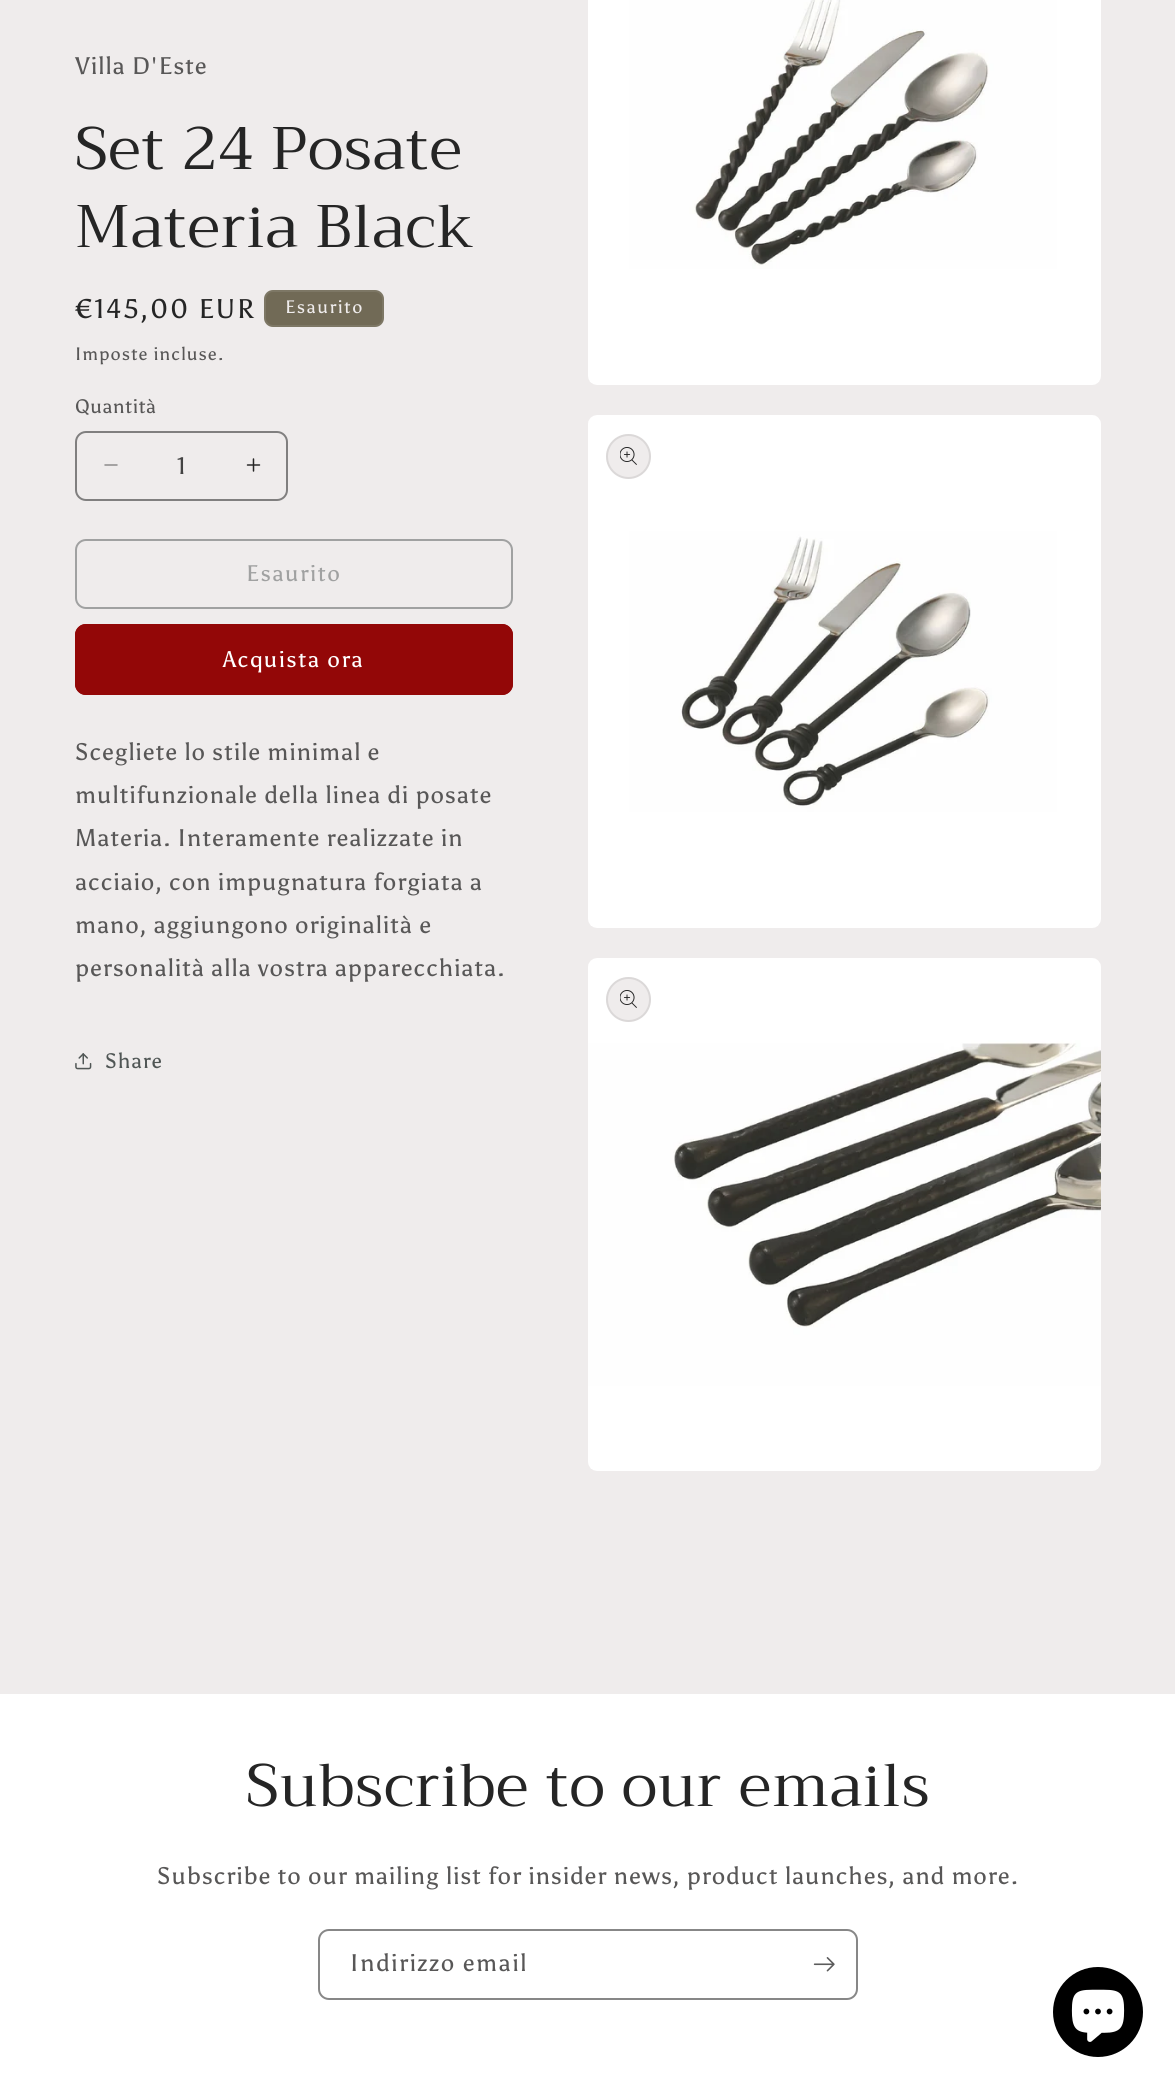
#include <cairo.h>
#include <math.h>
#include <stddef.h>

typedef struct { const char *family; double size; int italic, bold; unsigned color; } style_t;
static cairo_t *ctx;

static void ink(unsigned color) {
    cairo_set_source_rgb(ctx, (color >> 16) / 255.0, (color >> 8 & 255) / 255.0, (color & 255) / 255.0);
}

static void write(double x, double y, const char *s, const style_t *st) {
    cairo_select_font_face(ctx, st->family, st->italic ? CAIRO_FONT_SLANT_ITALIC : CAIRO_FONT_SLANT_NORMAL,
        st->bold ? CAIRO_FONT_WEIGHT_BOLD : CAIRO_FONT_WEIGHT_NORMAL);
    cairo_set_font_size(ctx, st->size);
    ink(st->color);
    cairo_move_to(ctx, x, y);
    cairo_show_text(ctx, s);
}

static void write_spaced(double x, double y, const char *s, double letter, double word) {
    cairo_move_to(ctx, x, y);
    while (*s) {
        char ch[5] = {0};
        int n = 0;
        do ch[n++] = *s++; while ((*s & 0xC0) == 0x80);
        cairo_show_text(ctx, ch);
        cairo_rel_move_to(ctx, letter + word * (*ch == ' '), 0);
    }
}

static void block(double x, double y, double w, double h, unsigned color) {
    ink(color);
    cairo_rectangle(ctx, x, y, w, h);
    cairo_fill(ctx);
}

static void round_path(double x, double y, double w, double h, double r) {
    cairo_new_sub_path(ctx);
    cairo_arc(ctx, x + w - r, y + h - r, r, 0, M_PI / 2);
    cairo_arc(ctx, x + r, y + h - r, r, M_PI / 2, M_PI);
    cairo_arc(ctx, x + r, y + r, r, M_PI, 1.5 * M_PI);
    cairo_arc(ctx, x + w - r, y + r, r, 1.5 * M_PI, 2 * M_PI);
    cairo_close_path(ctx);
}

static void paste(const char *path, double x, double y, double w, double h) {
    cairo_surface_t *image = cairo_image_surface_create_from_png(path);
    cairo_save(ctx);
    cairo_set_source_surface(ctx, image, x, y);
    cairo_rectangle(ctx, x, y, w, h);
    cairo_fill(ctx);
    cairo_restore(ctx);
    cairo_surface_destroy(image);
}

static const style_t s1 = {"Asul", 24, 0, 0, 0x434343};

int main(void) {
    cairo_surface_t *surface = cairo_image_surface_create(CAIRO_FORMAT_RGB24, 1175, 2088);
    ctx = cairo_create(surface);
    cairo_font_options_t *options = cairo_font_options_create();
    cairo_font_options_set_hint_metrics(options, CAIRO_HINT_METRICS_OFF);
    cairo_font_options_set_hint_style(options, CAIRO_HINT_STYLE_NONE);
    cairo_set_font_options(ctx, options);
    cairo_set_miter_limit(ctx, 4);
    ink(0xefecec);
    cairo_paint(ctx);
    cairo_select_font_face(ctx, "Asul", CAIRO_FONT_SLANT_NORMAL, CAIRO_FONT_WEIGHT_NORMAL);
    cairo_set_font_size(ctx, 24);
    ink(0x585757);
    write_spaced(75, 74, "Villa D'Este", 0.9, 0);
    cairo_select_font_face(ctx, "Trirong", CAIRO_FONT_SLANT_NORMAL, CAIRO_FONT_WEIGHT_NORMAL);
    cairo_set_font_size(ctx, 60);
    ink(0x252525);
    write_spaced(75, 169, "Set 24 Posate", 0.9, 0);
    write_spaced(75, 247, "Materia Black", 0.9, 0);
    cairo_select_font_face(ctx, "Asul", CAIRO_FONT_SLANT_NORMAL, CAIRO_FONT_WEIGHT_NORMAL);
    cairo_set_font_size(ctx, 27);
    write_spaced(75, 318, "€145,00 EUR", 2, 0);
    ink(0x716a56);
    round_path(264, 290, 120, 37, 9);
    cairo_fill(ctx);
    round_path(265, 291, 118, 35, 8);
    cairo_set_source_rgba(ctx, 0.937, 0.925, 0.925, 0.1);
    cairo_stroke(ctx);
    cairo_set_font_size(ctx, 18);
    ink(0xefecec);
    write_spaced(285, 313, "Esaurito", 1.5, 0);
    ink(0x585757);
    write_spaced(75, 360, "Imposte incluse.", 1, 0);
    cairo_set_font_size(ctx, 19.5);
    write_spaced(75, 413, "Quantità", 0.5, 0);
    paste("pic1.png", 104, 464, 14, 2);
    paste("pic2.png", 246, 458, 15, 14);
    round_path(76, 432, 211, 68, 10);
    ink(0x807f7f);
    cairo_stroke(ctx);
    write(177, 474, "1", &s1);
    round_path(76, 540, 436, 68, 10);
    ink(0xa0a1a1);
    cairo_stroke(ctx);
    cairo_set_font_size(ctx, 22.5);
    write_spaced(246, 581, "Esaurito", 1.5, 0);
    ink(0x930707);
    round_path(75, 624, 438, 71, 11);
    cairo_fill(ctx);
    round_path(76, 625, 436, 69, 10);
    cairo_stroke(ctx);
    ink(0xffffff);
    write_spaced(223, 667, "Acquista ora", 1.5, 0);
    cairo_set_font_size(ctx, 24);
    ink(0x585757);
    write_spaced(75, 760, "Scegliete lo stile minimal e", 0.9, 0);
    write_spaced(75, 803, "multifunzionale della linea di posate", 0.9, 0);
    write_spaced(75, 846, "Materia. Interamente realizzate in", 0.9, 0);
    write_spaced(75, 890, "acciaio, con impugnatura forgiata a", 0.9, 0);
    write_spaced(75, 933, "mano, aggiungono originalità e", 0.9, 0);
    write_spaced(75, 976, "personalità alla vostra apparecchiata.", 0.9, 0);
    paste("pic3.png", 75, 1053, 17, 17);
    cairo_set_font_size(ctx, 21);
    ink(0x505655);
    write_spaced(105, 1068, "Share", 0.9, 0);
    paste("pic4.png", 588, 0, 513, 385);
    paste("pic5.png", 588, 415, 513, 513);
    ink(0xefecec);
    cairo_arc(ctx, 628.5, 456.5, 22.5, 0, 2 * M_PI);
    cairo_fill(ctx);
    cairo_arc(ctx, 628.5, 456.5, 21.5, 0, 2 * M_PI);
    cairo_set_source_rgba(ctx, 0.145, 0.145, 0.145, 0.1);
    cairo_stroke(ctx);
    paste("pic6.png", 620, 447, 17, 18);
    paste("pic7.png", 588, 958, 513, 513);
    ink(0xefecec);
    cairo_arc(ctx, 628.5, 999.5, 22.5, 0, 2 * M_PI);
    cairo_fill(ctx);
    cairo_arc(ctx, 628.5, 999.5, 21.5, 0, 2 * M_PI);
    cairo_set_source_rgba(ctx, 0.145, 0.145, 0.145, 0.1);
    cairo_stroke(ctx);
    paste("pic6.png", 620, 990, 17, 18);
    block(0, 1694, 1175, 394, 0xffffff);
    cairo_select_font_face(ctx, "Trirong", CAIRO_FONT_SLANT_NORMAL, CAIRO_FONT_WEIGHT_NORMAL);
    cairo_set_font_size(ctx, 60);
    ink(0x252525);
    write_spaced(246, 1806, "Subscribe to our emails", 0.9, 0);
    cairo_select_font_face(ctx, "Asul", CAIRO_FONT_SLANT_NORMAL, CAIRO_FONT_WEIGHT_NORMAL);
    cairo_set_font_size(ctx, 24);
    ink(0x585757);
    write_spaced(157, 1884, "Subscribe to our mailing list for insider news, product launches, and more.", 0.9, 0);
    round_path(319, 1930, 538, 69, 10);
    ink(0x878787);
    cairo_stroke(ctx);
    ink(0x585757);
    write_spaced(350, 1971, "Indirizzo email", 1.5, 0);
    paste("pic8.png", 813, 1957, 22, 15);
    ink(0x000000);
    cairo_arc(ctx, 1098, 2012, 45, 0, 2 * M_PI);
    cairo_fill(ctx);
    paste("pic9.png", 1071, 1989, 54, 53);
    cairo_surface_write_to_png(surface, "screenshot.png");
    cairo_font_options_destroy(options);
    cairo_destroy(ctx);
    cairo_surface_destroy(surface);
    return 0;
}
